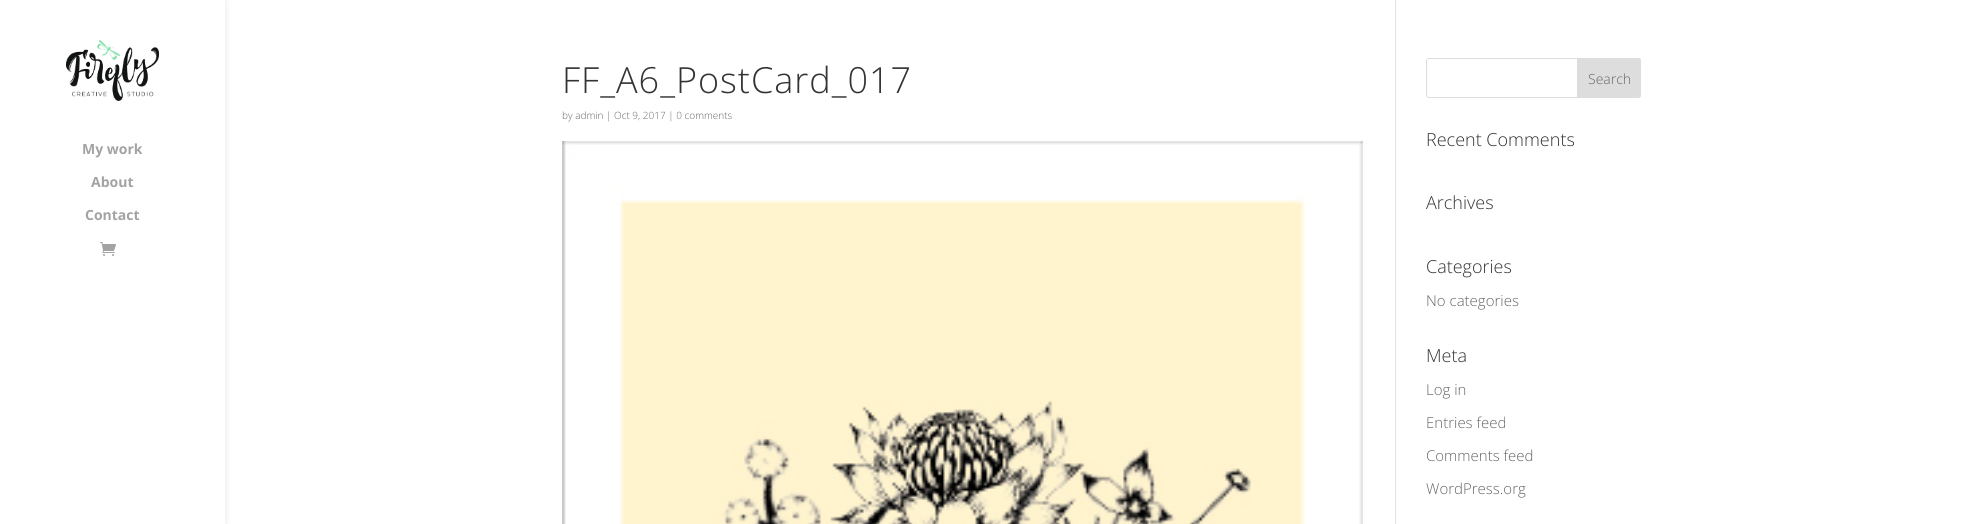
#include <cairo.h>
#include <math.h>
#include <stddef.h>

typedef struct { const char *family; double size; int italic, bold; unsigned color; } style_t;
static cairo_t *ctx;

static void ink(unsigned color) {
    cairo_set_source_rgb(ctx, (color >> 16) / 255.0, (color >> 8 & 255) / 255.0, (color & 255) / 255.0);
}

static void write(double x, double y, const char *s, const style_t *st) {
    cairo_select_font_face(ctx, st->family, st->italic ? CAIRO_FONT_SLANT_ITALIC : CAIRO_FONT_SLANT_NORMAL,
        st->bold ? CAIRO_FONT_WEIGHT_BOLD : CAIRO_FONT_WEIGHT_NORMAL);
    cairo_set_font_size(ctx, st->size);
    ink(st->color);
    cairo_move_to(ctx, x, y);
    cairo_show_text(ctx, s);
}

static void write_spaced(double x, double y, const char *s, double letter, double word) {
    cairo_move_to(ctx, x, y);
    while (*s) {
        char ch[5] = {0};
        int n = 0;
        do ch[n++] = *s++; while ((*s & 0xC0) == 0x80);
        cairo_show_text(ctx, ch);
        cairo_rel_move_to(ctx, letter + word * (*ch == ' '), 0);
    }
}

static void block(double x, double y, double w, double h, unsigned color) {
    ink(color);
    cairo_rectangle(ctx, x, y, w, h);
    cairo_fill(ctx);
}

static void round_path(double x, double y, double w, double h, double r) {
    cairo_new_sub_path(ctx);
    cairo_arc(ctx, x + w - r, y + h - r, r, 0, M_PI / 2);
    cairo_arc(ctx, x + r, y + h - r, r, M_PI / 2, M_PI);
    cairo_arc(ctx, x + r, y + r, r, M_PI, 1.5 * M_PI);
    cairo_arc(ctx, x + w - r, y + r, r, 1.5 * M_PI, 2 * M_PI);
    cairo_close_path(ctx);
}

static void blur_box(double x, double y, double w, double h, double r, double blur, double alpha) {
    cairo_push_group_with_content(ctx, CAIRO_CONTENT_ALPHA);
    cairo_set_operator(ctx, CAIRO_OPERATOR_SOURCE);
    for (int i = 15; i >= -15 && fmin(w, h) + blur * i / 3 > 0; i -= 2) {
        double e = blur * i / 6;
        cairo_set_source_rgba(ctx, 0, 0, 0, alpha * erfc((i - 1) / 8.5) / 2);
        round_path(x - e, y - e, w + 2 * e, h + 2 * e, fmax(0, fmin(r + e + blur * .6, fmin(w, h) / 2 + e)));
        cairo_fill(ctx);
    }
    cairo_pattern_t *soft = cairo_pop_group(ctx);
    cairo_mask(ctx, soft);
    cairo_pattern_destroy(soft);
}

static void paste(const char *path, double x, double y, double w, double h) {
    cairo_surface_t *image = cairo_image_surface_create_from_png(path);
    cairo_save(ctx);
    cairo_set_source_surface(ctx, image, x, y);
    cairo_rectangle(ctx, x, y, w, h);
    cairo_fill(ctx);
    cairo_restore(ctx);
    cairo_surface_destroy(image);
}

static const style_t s1 = {"Open Sans", 14, 0, 1, 0xa3a3a3};
static const style_t s2 = {"Open Sans Light", 10, 0, 0, 0x666666};
static const style_t s3 = {"Open Sans Light", 14, 0, 0, 0x666666};
static const style_t s4 = {"Open Sans Light", 18, 0, 0, 0x333333};
static const style_t s5 = {"Open Sans Light", 15, 0, 0, 0x666666};

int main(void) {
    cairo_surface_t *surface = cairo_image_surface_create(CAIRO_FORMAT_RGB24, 1978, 524);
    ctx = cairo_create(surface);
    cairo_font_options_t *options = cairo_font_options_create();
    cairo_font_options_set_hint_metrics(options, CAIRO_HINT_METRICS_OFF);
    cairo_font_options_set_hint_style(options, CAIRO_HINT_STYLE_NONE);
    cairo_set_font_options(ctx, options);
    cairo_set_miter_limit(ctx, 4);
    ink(0xffffff);
    cairo_paint(ctx);
    ink(0x000000);
    blur_box(0, 0, 225, 524, 0, 3.5, 0.1);
    block(0, 0, 225, 524, 0xffffff);
    paste("pic1.png", 66, 40, 93, 61);
    write(82, 154, "My work", &s1);
    write(91, 187, "About", &s1);
    write(85, 220, "Contact", &s1);
    paste("pic2.png", 100, 242, 16, 14);
    block(1395, 0, 1, 524, 0xe2e2e2);
    cairo_select_font_face(ctx, "Open Sans Light", CAIRO_FONT_SLANT_NORMAL, CAIRO_FONT_WEIGHT_NORMAL);
    cairo_set_font_size(ctx, 36);
    ink(0x333333);
    write_spaced(562, 93, "FF_A6_PostCard_017", 1, 0);
    write(562, 119, "by admin | Oct 9, 2017 | 0 comments", &s2);
    paste("pic3.png", 562, 141, 801, 383);
    round_path(1426.5, 58.5, 214, 39, 2.5);
    ink(0xdddddd);
    cairo_set_line_width(ctx, 1);
    cairo_stroke(ctx);
    cairo_new_path(ctx);
    cairo_move_to(ctx, 1577.5, 58.5);
    cairo_line_to(ctx, 1638, 58.5);
    cairo_curve_to(ctx, 1639.5, 58.5, 1640.5, 59.5, 1640.5, 61);
    cairo_line_to(ctx, 1640.5, 95);
    cairo_curve_to(ctx, 1640.5, 96.5, 1639.5, 97.5, 1638, 97.5);
    cairo_line_to(ctx, 1577.5, 97.5);
    cairo_close_path(ctx);
    cairo_fill_preserve(ctx);
    cairo_stroke(ctx);
    write(1588, 84, "Search", &s3);
    write(1426, 146, "Recent Comments", &s4);
    write(1426, 209, "Archives", &s4);
    write(1426, 273, "Categories", &s4);
    write(1426, 306, "No categories", &s5);
    write(1426, 362, "Meta", &s4);
    write(1426, 395, "Log in", &s5);
    write(1426, 428, "Entries feed", &s5);
    write(1426, 461, "Comments feed", &s5);
    write(1426, 494, "WordPress.org", &s5);
    cairo_surface_write_to_png(surface, "screenshot.png");
    cairo_font_options_destroy(options);
    cairo_destroy(ctx);
    cairo_surface_destroy(surface);
    return 0;
}
